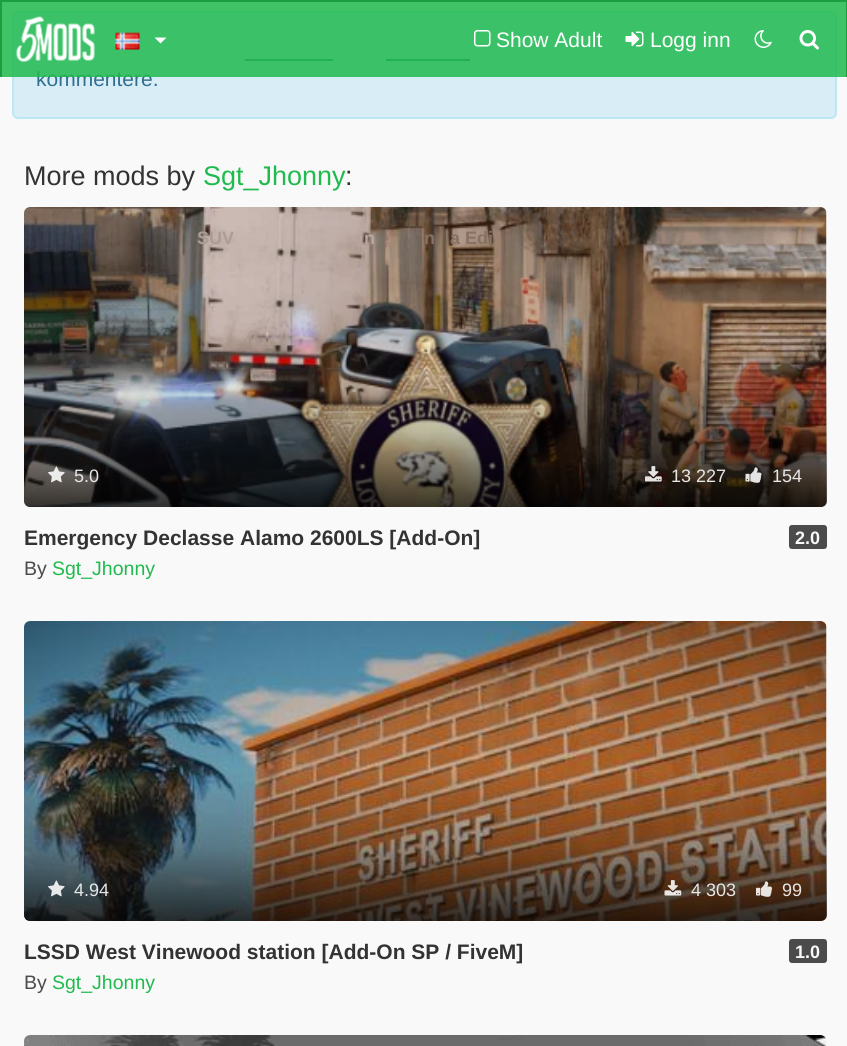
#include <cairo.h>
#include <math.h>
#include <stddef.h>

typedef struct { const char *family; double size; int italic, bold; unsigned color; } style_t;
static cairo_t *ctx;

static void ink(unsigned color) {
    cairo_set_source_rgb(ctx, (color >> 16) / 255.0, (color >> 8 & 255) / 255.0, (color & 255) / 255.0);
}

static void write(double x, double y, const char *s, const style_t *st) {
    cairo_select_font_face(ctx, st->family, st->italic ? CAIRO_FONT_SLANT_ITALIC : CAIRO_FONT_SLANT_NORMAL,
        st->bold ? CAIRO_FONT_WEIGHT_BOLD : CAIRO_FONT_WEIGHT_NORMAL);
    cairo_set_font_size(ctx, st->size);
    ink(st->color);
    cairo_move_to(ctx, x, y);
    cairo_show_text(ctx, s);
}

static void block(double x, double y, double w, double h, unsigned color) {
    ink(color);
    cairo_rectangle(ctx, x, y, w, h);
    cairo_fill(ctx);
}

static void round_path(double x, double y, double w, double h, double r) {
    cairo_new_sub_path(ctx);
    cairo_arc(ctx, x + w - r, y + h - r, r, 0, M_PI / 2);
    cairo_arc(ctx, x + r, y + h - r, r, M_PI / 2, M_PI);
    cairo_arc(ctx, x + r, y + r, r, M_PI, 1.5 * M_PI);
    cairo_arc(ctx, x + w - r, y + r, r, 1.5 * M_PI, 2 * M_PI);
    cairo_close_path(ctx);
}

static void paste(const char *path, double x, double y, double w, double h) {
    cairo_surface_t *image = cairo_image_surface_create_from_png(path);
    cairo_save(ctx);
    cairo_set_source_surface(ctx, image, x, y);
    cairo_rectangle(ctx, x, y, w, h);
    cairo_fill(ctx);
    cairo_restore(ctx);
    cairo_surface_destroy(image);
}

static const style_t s1 = {"Liberation Sans", 21, 0, 0, 0x31708f};
static const style_t s2 = {"Liberation Sans", 21, 0, 0, 0xffffff};
static const style_t s3 = {"Liberation Sans", 27, 0, 0, 0x333333};
static const style_t s4 = {"Liberation Sans", 27, 0, 0, 0x20ba4e};
static const style_t s5 = {"Liberation Sans", 18, 0, 1, 0xab9c96};
static const style_t s6 = {"Liberation Sans", 18, 0, 1, 0xb9a7a1};
static const style_t s7 = {"Liberation Sans", 18, 0, 1, 0x867162};
static const style_t s8 = {"Liberation Sans", 18, 0, 0, 0xe8e7e7};
static const style_t s9 = {"Liberation Sans", 21, 0, 1, 0x333333};
static const style_t s10 = {"Liberation Sans", 18, 0, 1, 0xf9f9f9};
static const style_t s11 = {"Liberation Sans", 19.5, 0, 0, 0x4b4b4b};
static const style_t s12 = {"Liberation Sans", 19.5, 0, 0, 0x20ba4e};

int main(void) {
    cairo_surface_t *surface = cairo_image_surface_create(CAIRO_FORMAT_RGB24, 847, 1046);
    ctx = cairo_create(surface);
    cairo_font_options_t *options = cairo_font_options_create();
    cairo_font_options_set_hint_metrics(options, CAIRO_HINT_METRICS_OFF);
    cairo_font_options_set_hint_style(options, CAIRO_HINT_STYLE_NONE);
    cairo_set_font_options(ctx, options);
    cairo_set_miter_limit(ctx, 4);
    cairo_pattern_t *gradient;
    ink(0xf9f9f9);
    cairo_paint(ctx);
    ink(0xd9edf7);
    round_path(13, 12, 823, 106, 5);
    cairo_fill_preserve(ctx);
    ink(0xbce8f1);
    cairo_stroke(ctx);
    block(245, 59, 88, 2, 0x31708f);
    block(386, 59, 84, 2, 0x31708f);
    write(36, 86, "kommentere.", &s1);
    cairo_set_source_rgba(ctx, 0.125, 0.729, 0.306, 0.85);
    cairo_rectangle(ctx, 2, 2, 844, 75);
    cairo_fill(ctx);
    block(0, 0, 847, 2, 0x1b9e42);
    block(846, 0, 1, 77, 0x1b9e42);
    block(0, 0, 2, 77, 0x1b9e42);
    paste("pic1.png", 16, 16, 79, 46);
    paste("pic2.png", 115, 32, 25, 18);
    ink(0xffffff);
    cairo_new_path(ctx);
    cairo_move_to(ctx, 154.5, 37.5);
    cairo_line_to(ctx, 166.5, 37.5);
    cairo_line_to(ctx, 160.5, 43.5);
    cairo_close_path(ctx);
    cairo_fill(ctx);
    paste("pic3.png", 474, 30, 17, 17);
    write(496, 47, "Show Adult", &s2);
    paste("pic4.png", 625, 31, 19, 16);
    write(650, 47, "Logg inn", &s2);
    paste("pic5.png", 754, 30, 18, 18);
    paste("pic6.png", 799, 30, 20, 20);
    write(24, 185, "More mods by", &s3);
    write(203, 185, "Sgt_Jhonny", &s4);
    write(345, 185, ":", &s3);
    paste("pic7.png", 24, 207, 803, 300);
    gradient = cairo_pattern_create_linear(425, 207, 425, 507);
    cairo_pattern_add_color_stop_rgba(gradient, 0.5, 0, 0, 0, 0);
    cairo_pattern_add_color_stop_rgba(gradient, 0.75, 0, 0, 0, 0.25);
    cairo_pattern_add_color_stop_rgba(gradient, 1, 0, 0, 0, 0.75);
    cairo_set_source(ctx, gradient);
    cairo_pattern_destroy(gradient);
    round_path(24, 207, 803, 300, 6);
    cairo_fill(ctx);
    write(197, 244, "SUV", &s5);
    write(364, 244, "n", &s6);
    write(424, 244, "n", &s7);
    write(450, 244, "a Edi", &s7);
    paste("pic8.png", 48, 466, 17, 17);
    write(74, 482, "5.0", &s8);
    paste("pic9.png", 645, 466, 17, 16);
    write(671, 482, "13 227", &s8);
    paste("pic10.png", 745, 467, 17, 16);
    write(772, 482, "154", &s8);
    write(24, 545, "Emergency Declasse Alamo 2600LS [Add-On]", &s9);
    ink(0x4b4b4b);
    round_path(789, 525, 38, 24, 3);
    cairo_fill(ctx);
    write(795, 544, "2.0", &s10);
    write(24, 575, "By", &s11);
    write(52, 575, "Sgt_Jhonny", &s12);
    paste("pic11.png", 24, 621, 803, 300);
    gradient = cairo_pattern_create_linear(425, 621, 425, 921);
    cairo_pattern_add_color_stop_rgba(gradient, 0.5, 0, 0, 0, 0);
    cairo_pattern_add_color_stop_rgba(gradient, 0.75, 0, 0, 0, 0.25);
    cairo_pattern_add_color_stop_rgba(gradient, 1, 0, 0, 0, 0.75);
    cairo_set_source(ctx, gradient);
    cairo_pattern_destroy(gradient);
    round_path(24, 621, 803, 300, 6);
    cairo_fill(ctx);
    paste("pic12.png", 48, 880, 17, 17);
    write(74, 896, "4.94", &s8);
    paste("pic13.png", 664, 880, 18, 16);
    write(691, 896, "4 303", &s8);
    paste("pic14.png", 756, 881, 17, 16);
    write(782, 896, "99", &s8);
    write(24, 959, "LSSD West Vinewood station [Add-On SP / FiveM]", &s9);
    ink(0x4b4b4b);
    round_path(789, 939, 38, 24, 3);
    cairo_fill(ctx);
    write(795, 958, "1.0", &s10);
    write(24, 989, "By", &s11);
    write(52, 989, "Sgt_Jhonny", &s12);
    paste("pic15.png", 24, 1035, 803, 11);
    cairo_surface_write_to_png(surface, "screenshot.png");
    cairo_font_options_destroy(options);
    cairo_destroy(ctx);
    cairo_surface_destroy(surface);
    return 0;
}
